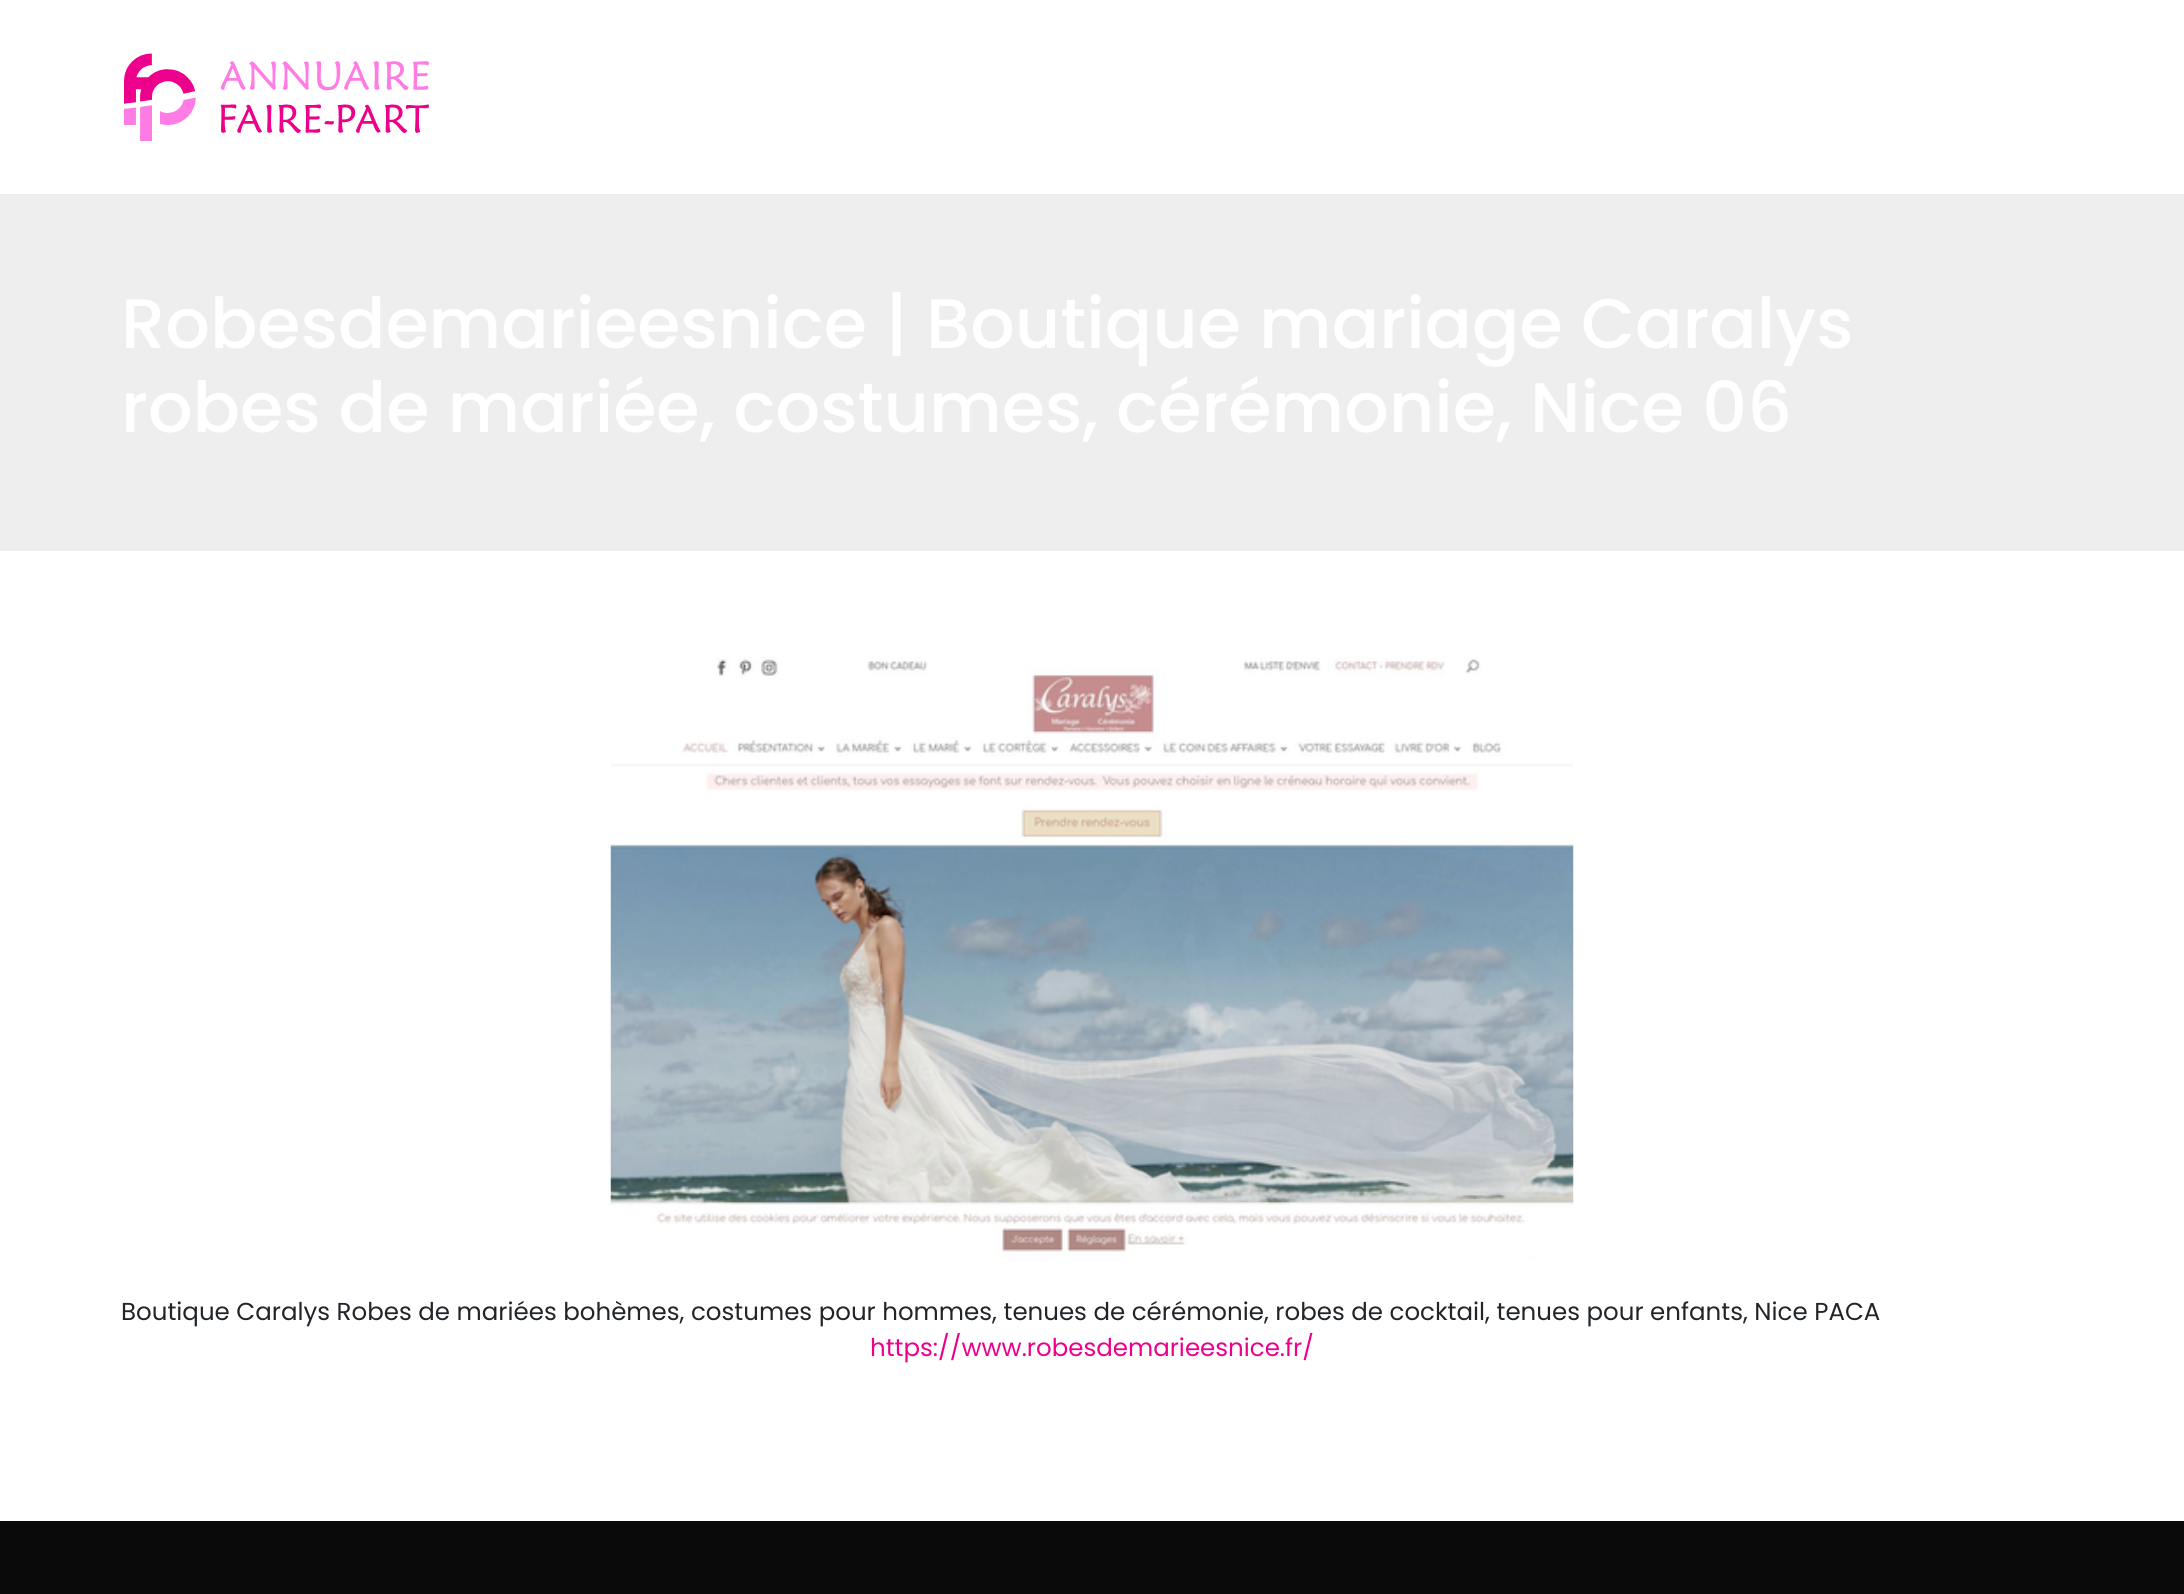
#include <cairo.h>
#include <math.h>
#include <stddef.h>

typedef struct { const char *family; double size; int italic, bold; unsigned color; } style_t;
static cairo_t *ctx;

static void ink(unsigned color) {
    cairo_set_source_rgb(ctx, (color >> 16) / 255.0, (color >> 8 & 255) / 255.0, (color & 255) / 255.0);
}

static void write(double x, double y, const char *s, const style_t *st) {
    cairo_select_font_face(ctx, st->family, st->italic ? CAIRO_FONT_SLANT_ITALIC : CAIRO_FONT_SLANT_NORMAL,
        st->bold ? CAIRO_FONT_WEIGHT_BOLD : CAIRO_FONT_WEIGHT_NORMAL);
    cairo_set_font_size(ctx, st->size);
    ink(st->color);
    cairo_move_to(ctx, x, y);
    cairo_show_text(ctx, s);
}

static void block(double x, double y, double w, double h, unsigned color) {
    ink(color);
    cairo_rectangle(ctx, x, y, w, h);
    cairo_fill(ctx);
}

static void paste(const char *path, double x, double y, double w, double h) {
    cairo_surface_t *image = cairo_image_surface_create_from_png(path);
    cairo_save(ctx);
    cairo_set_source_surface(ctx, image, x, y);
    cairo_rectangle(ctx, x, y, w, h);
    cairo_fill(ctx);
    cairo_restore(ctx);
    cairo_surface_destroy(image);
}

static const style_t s1 = {"Poppins Medium", 70, 0, 0, 0xffffff};
static const style_t s2 = {"Poppins", 24.5, 0, 0, 0x212529};
static const style_t s3 = {"Poppins", 24.5, 0, 0, 0xec008c};

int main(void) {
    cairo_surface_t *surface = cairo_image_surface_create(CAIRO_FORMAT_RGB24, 2184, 1594);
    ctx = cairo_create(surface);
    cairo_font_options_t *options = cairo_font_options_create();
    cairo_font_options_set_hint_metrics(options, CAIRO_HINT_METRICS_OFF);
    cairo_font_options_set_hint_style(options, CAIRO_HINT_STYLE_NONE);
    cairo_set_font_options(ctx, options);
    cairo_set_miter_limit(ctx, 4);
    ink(0xffffff);
    cairo_paint(ctx);
    paste("pic1.png", 124, 53, 305, 88);
    block(0, 194, 2184, 357, 0xeeeeee);
    write(121, 348, "Robesdemarieesnice | Boutique mariage Caralys", &s1);
    write(121, 432, "robes de mariée, costumes, cérémonie, Nice 06", &s1);
    paste("pic2.png", 610, 657, 964, 601);
    write(121, 1320, "Boutique Caralys Robes de mariées bohèmes, costumes pour hommes, tenues de cérémonie, robes de cocktail, tenues pour enfants, Nice PACA", &s2);
    write(870, 1356, "https://www.robesdemarieesnice.fr/", &s3);
    block(0, 1521, 2184, 73, 0x0a0a0a);
    cairo_surface_write_to_png(surface, "screenshot.png");
    cairo_font_options_destroy(options);
    cairo_destroy(ctx);
    cairo_surface_destroy(surface);
    return 0;
}
